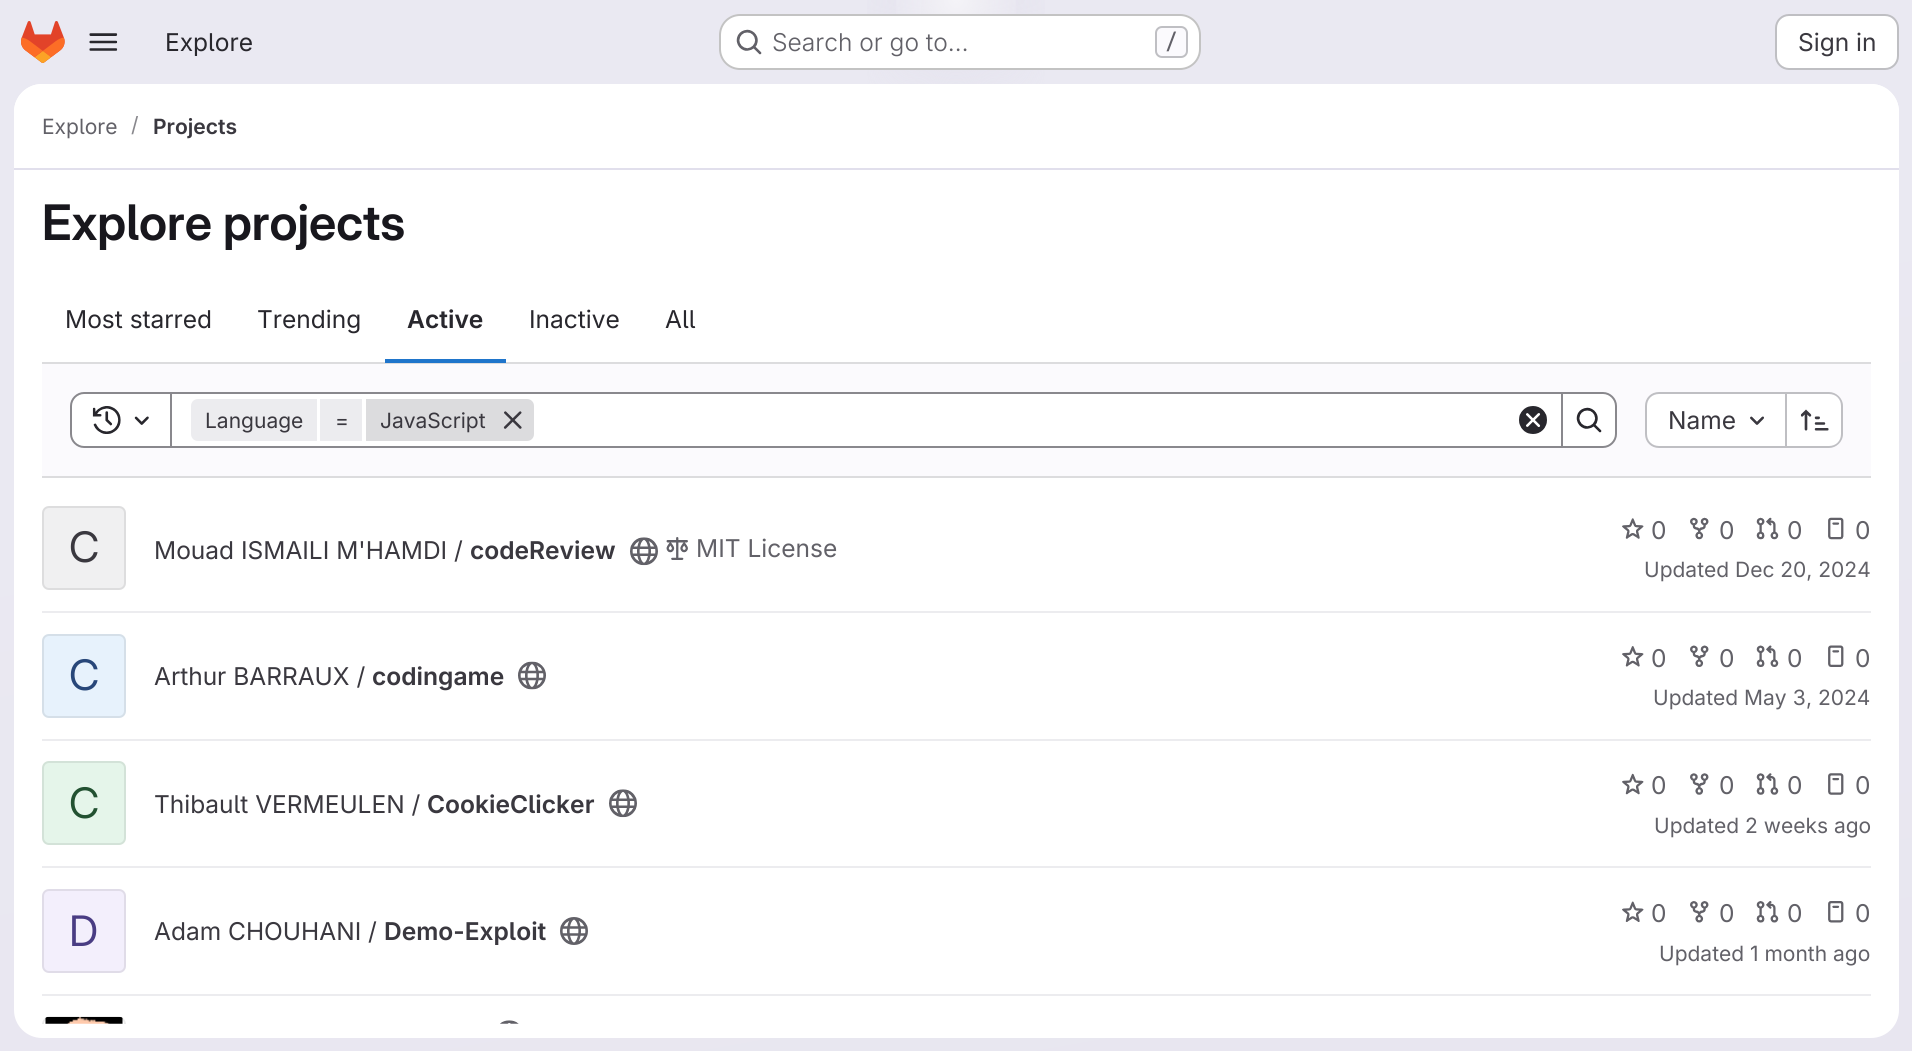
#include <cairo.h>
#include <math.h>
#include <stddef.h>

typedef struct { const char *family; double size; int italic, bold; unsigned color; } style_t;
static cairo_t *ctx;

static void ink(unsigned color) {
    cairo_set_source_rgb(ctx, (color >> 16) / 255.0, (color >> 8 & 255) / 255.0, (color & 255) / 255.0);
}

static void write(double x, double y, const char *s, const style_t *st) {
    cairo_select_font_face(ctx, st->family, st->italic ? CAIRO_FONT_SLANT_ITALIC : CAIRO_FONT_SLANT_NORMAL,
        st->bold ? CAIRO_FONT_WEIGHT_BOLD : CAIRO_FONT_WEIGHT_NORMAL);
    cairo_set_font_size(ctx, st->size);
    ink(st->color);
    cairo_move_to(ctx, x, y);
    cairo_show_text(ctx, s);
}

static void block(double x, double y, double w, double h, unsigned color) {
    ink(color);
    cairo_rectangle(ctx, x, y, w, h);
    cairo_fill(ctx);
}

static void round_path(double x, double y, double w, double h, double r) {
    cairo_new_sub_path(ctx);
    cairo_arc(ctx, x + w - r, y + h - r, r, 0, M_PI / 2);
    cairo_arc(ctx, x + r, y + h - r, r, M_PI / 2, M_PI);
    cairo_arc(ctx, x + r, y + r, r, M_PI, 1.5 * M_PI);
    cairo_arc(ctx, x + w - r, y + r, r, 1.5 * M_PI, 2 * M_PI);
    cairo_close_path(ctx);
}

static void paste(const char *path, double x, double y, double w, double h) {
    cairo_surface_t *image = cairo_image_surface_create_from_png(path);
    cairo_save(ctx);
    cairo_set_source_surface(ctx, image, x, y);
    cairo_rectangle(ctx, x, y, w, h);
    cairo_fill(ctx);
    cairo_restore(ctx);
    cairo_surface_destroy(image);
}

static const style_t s1 = {"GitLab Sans", 24.5, 0, 0, 0x28272d};
static const style_t s2 = {"GitLab Sans Light", 24.5, 0, 0, 0x626168};
static const style_t s3 = {"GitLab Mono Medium", 21, 0, 0, 0x626168};
static const style_t s4 = {"GitLab Sans", 24.5, 0, 0, 0x3a383f};
static const style_t s5 = {"GitLab Sans", 21, 0, 0, 0x626168};
static const style_t s6 = {"GitLab Sans", 21, 0, 0, 0x89888d};
static const style_t s7 = {"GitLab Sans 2 SemiBold", 21, 0, 0, 0x3a383f};
static const style_t s8 = {"GitLab Sans SemiBold", 49, 0, 0, 0x18171d};
static const style_t s9 = {"GitLab Sans 2 SemiBold", 24.5, 0, 0, 0x28272d};
static const style_t s10 = {"GitLab Sans", 21, 0, 0, 0x3a383f};
static const style_t s11 = {"GitLab Sans 2", 42, 0, 0, 0x3a383f};
static const style_t s12 = {"GitLab Sans 2 SemiBold", 24.5, 0, 0, 0x3a383f};
static const style_t s13 = {"GitLab Sans", 24.5, 0, 0, 0x626168};
static const style_t s14 = {"GitLab Sans 2", 42, 0, 0, 0x284779};
static const style_t s15 = {"GitLab Sans 2", 42, 0, 0, 0x225131};
static const style_t s16 = {"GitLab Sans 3", 42, 0, 0, 0x493c83};

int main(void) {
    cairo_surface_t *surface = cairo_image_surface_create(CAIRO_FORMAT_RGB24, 1912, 1051);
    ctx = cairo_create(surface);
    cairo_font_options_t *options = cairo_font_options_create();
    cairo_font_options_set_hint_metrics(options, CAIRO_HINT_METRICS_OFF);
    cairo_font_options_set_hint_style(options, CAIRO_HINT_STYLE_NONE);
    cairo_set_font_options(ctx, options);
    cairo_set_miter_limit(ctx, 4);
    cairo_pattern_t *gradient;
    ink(0xffffff);
    cairo_paint(ctx);
    gradient = cairo_pattern_create_linear(1075, 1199, 838, -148);
    cairo_pattern_add_color_stop_rgba(gradient, 0, 0.91, 0.902, 0.941, 1);
    cairo_pattern_add_color_stop_rgba(gradient, 0.7, 0.918, 0.914, 0.949, 1);
    cairo_set_source(ctx, gradient);
    cairo_pattern_destroy(gradient);
    cairo_rectangle(ctx, 0, 0, 1912, 1051);
    cairo_fill(ctx);
    gradient = cairo_pattern_create_radial(0, 0, 0, 0, 0, 1);
    cairo_pattern_set_matrix(gradient, &(cairo_matrix_t){1.0 / 956, 0, 0, 1.0 / 1052, -1.0 * 956 / 956, -1.0 * 0 / 1052});
    cairo_pattern_add_color_stop_rgba(gradient, 0, 0.894, 0.886, 0.929, 1);
    cairo_pattern_add_color_stop_rgba(gradient, 0.13, 0.894, 0.886, 0.929, 0);
    cairo_set_source(ctx, gradient);
    cairo_pattern_destroy(gradient);
    cairo_rectangle(ctx, 867, 0, 178, 84);
    cairo_fill(ctx);
    gradient = cairo_pattern_create_radial(0, 0, 0, 0, 0, 1);
    cairo_pattern_set_matrix(gradient, &(cairo_matrix_t){1.0 / 956, 0, 0, 1.0 / 1052, -1.0 * 956 / 956, -1.0 * 0 / 1052});
    cairo_pattern_add_color_stop_rgba(gradient, 0, 0.894, 0.886, 0.925, 1);
    cairo_pattern_add_color_stop_rgba(gradient, 0.09, 0.894, 0.886, 0.925, 0);
    cairo_set_source(ctx, gradient);
    cairo_pattern_destroy(gradient);
    cairo_rectangle(ctx, 921, 0, 69, 32);
    cairo_fill(ctx);
    gradient = cairo_pattern_create_radial(956, 0, 0, 956, 0, 1422);
    cairo_pattern_add_color_stop_rgba(gradient, 0, 1, 1, 1, 0.6);
    cairo_pattern_add_color_stop_rgba(gradient, 0.05, 1, 1, 1, 0);
    cairo_set_source(ctx, gradient);
    cairo_pattern_destroy(gradient);
    cairo_rectangle(ctx, 896, 0, 120, 14);
    cairo_fill(ctx);
    paste("pic1.png", 21, 21, 44, 42);
    paste("pic2.png", 89, 33, 29, 18);
    write(165, 51, "Explore", &s1);
    ink(0xffffff);
    round_path(719, 14, 482, 56, 21);
    cairo_fill(ctx);
    round_path(720, 15, 480, 54, 20);
    cairo_set_source_rgba(ctx, 0.02, 0.02, 0.024, 0.24);
    cairo_stroke(ctx);
    paste("pic3.png", 736, 29, 26, 26);
    write(772, 51, "Search or go to…", &s2);
    ink(0xfbfafd);
    round_path(1156, 27, 31, 30, 6);
    cairo_fill_preserve(ctx);
    ink(0xbfbfc3);
    cairo_stroke(ctx);
    write(1165, 49, "/", &s3);
    ink(0xffffff);
    round_path(1776, 15, 122, 54, 13);
    cairo_fill_preserve(ctx);
    ink(0xbfbfc3);
    cairo_stroke(ctx);
    write(1798, 51, "Sign in", &s4);
    ink(0xffffff);
    round_path(14, 84, 1885, 954, 28);
    cairo_fill(ctx);
    cairo_new_path(ctx);
    cairo_move_to(ctx, 42, 84);
    cairo_line_to(ctx, 1871, 84);
    cairo_curve_to(ctx, 1886.5, 84, 1899, 96.5, 1899, 112);
    cairo_line_to(ctx, 1899, 170);
    cairo_line_to(ctx, 14, 170);
    cairo_line_to(ctx, 14, 112);
    cairo_curve_to(ctx, 14, 96.5, 26.5, 84, 42, 84);
    cairo_close_path(ctx);
    cairo_fill(ctx);
    block(14, 168, 1885, 2, 0xe1dfec);
    write(42, 134, "Explore", &s5);
    write(131, 132, "/", &s6);
    write(153, 134, "Projects", &s7);
    write(42, 240, "Explore projects", &s8);
    write(65, 328, "Most starred", &s1);
    write(257, 328, "Trending", &s1);
    write(407, 328, "Active", &s9);
    block(42, 362, 1829, 2, 0xdcdcde);
    block(385, 359, 121, 4, 0x1f75cb);
    write(529, 328, "Inactive", &s1);
    write(665, 328, "All", &s1);
    block(42, 364, 1829, 112, 0xfbfafd);
    block(42, 476, 1829, 2, 0xdcdcde);
    ink(0xffffff);
    cairo_rectangle(ctx, 171, 393, 1391, 54);
    cairo_fill_preserve(ctx);
    ink(0x89888d);
    cairo_stroke(ctx);
    ink(0xffffff);
    cairo_new_path(ctx);
    cairo_move_to(ctx, 84, 393);
    cairo_line_to(ctx, 171, 393);
    cairo_line_to(ctx, 171, 447);
    cairo_line_to(ctx, 84, 447);
    cairo_curve_to(ctx, 77, 447, 71, 441, 71, 434);
    cairo_line_to(ctx, 71, 406);
    cairo_curve_to(ctx, 71, 399, 77, 393, 84, 393);
    cairo_close_path(ctx);
    cairo_fill_preserve(ctx);
    ink(0x89888d);
    cairo_stroke(ctx);
    paste("pic4.png", 92, 406, 29, 28);
    paste("pic5.png", 134, 416, 15, 9);
    ink(0xececef);
    cairo_new_path(ctx);
    cairo_move_to(ctx, 198, 399);
    cairo_line_to(ctx, 317, 399);
    cairo_line_to(ctx, 317, 441);
    cairo_line_to(ctx, 198, 441);
    cairo_curve_to(ctx, 194, 441, 191, 438, 191, 434);
    cairo_line_to(ctx, 191, 406);
    cairo_curve_to(ctx, 191, 402, 194, 399, 198, 399);
    cairo_close_path(ctx);
    cairo_fill(ctx);
    write(205, 428, "Language", &s10);
    block(320, 399, 42, 42, 0xececef);
    write(335, 428, "=", &s10);
    ink(0xdcdcde);
    cairo_new_path(ctx);
    cairo_move_to(ctx, 366, 399);
    cairo_line_to(ctx, 527, 399);
    cairo_curve_to(ctx, 531, 399, 534, 402, 534, 406);
    cairo_line_to(ctx, 534, 434);
    cairo_curve_to(ctx, 534, 438, 531, 441, 527, 441);
    cairo_line_to(ctx, 366, 441);
    cairo_close_path(ctx);
    cairo_fill(ctx);
    write(380, 428, "JavaScript", &s10);
    paste("pic6.png", 503, 411, 19, 18);
    paste("pic7.png", 1519, 406, 28, 28);
    ink(0xffffff);
    cairo_new_path(ctx);
    cairo_move_to(ctx, 1562, 393);
    cairo_line_to(ctx, 1603, 393);
    cairo_curve_to(ctx, 1610, 393, 1616, 399, 1616, 406);
    cairo_line_to(ctx, 1616, 434);
    cairo_curve_to(ctx, 1616, 441, 1610, 447, 1603, 447);
    cairo_line_to(ctx, 1562, 447);
    cairo_close_path(ctx);
    cairo_fill_preserve(ctx);
    ink(0x89888d);
    cairo_stroke(ctx);
    paste("pic8.png", 1576, 407, 26, 26);
    ink(0xffffff);
    cairo_new_path(ctx);
    cairo_move_to(ctx, 1659, 394);
    cairo_line_to(ctx, 1785, 394);
    cairo_line_to(ctx, 1785, 446);
    cairo_line_to(ctx, 1659, 446);
    cairo_curve_to(ctx, 1652.5, 446, 1647, 440.5, 1647, 434);
    cairo_line_to(ctx, 1647, 406);
    cairo_curve_to(ctx, 1647, 399.5, 1652.5, 394, 1659, 394);
    cairo_close_path(ctx);
    cairo_fill(ctx);
    ink(0xbfbfc3);
    cairo_set_fill_rule(ctx, CAIRO_FILL_RULE_EVEN_ODD);
    cairo_new_path(ctx);
    cairo_move_to(ctx, 1659, 392);
    cairo_line_to(ctx, 1785, 392);
    cairo_line_to(ctx, 1785, 448);
    cairo_line_to(ctx, 1659, 448);
    cairo_curve_to(ctx, 1651, 448, 1645, 442, 1645, 434);
    cairo_line_to(ctx, 1645, 406);
    cairo_curve_to(ctx, 1645, 398, 1651, 392, 1659, 392);
    cairo_close_path(ctx);
    cairo_move_to(ctx, 1659, 394);
    cairo_line_to(ctx, 1785, 394);
    cairo_line_to(ctx, 1785, 446);
    cairo_line_to(ctx, 1659, 446);
    cairo_curve_to(ctx, 1652, 446, 1647, 441, 1647, 434);
    cairo_line_to(ctx, 1647, 406);
    cairo_curve_to(ctx, 1647, 399, 1652, 394, 1659, 394);
    cairo_close_path(ctx);
    cairo_fill(ctx);
    write(1668, 429, "Name", &s4);
    paste("pic9.png", 1750, 416, 14, 9);
    ink(0xffffff);
    cairo_new_path(ctx);
    cairo_move_to(ctx, 1787, 394);
    cairo_line_to(ctx, 1829, 394);
    cairo_curve_to(ctx, 1835.5, 394, 1841, 399.5, 1841, 406);
    cairo_line_to(ctx, 1841, 434);
    cairo_curve_to(ctx, 1841, 440.5, 1835.5, 446, 1829, 446);
    cairo_line_to(ctx, 1787, 446);
    cairo_close_path(ctx);
    cairo_fill(ctx);
    ink(0xbfbfc3);
    cairo_new_path(ctx);
    cairo_move_to(ctx, 1787, 392);
    cairo_line_to(ctx, 1829, 392);
    cairo_curve_to(ctx, 1836, 392, 1843, 398, 1843, 406);
    cairo_line_to(ctx, 1843, 434);
    cairo_curve_to(ctx, 1843, 442, 1836, 448, 1829, 448);
    cairo_line_to(ctx, 1787, 448);
    cairo_close_path(ctx);
    cairo_move_to(ctx, 1787, 394);
    cairo_line_to(ctx, 1829, 394);
    cairo_curve_to(ctx, 1836, 394, 1841, 399, 1841, 406);
    cairo_line_to(ctx, 1841, 434);
    cairo_curve_to(ctx, 1841, 441, 1836, 446, 1829, 446);
    cairo_line_to(ctx, 1787, 446);
    cairo_close_path(ctx);
    cairo_fill(ctx);
    block(1785, 392, 2, 56, 0xbfbfc3);
    paste("pic10.png", 1800, 409, 29, 22);
    block(42, 611, 1829, 2, 0xececef);
    ink(0xf0f0f1);
    round_path(42, 506, 84, 84, 7);
    cairo_fill(ctx);
    round_path(43, 507, 82, 82, 6);
    cairo_set_source_rgba(ctx, 0.02, 0.02, 0.024, 0.08);
    cairo_stroke(ctx);
    write(69, 562, "C", &s11);
    write(154, 559, "Mouad ISMAILI M'HAMDI /", &s4);
    write(470, 559, "codeReview", &s12);
    paste("pic11.png", 630, 537, 28, 29);
    paste("pic12.png", 666, 537, 22, 23);
    write(696, 557, "MIT License", &s13);
    paste("pic13.png", 1622, 518, 22, 21);
    write(1651, 539, "0", &s13);
    paste("pic14.png", 1690, 517, 19, 23);
    write(1719, 539, "0", &s13);
    paste("pic15.png", 1756, 517, 23, 23);
    write(1787, 539, "0", &s13);
    paste("pic16.png", 1828, 517, 16, 23);
    write(1855, 539, "0", &s13);
    write(1644, 577, "Updated Dec 20, 2024", &s5);
    block(42, 739, 1829, 2, 0xececef);
    ink(0xe7f2fc);
    round_path(42, 634, 84, 84, 7);
    cairo_fill(ctx);
    round_path(43, 635, 82, 82, 6);
    cairo_set_source_rgba(ctx, 0.02, 0.02, 0.024, 0.08);
    cairo_stroke(ctx);
    write(69, 690, "C", &s14);
    write(154, 685, "Arthur BARRAUX /", &s4);
    write(372, 685, "codingame", &s12);
    paste("pic17.png", 518, 661, 28, 29);
    paste("pic18.png", 1622, 646, 22, 21);
    write(1651, 667, "0", &s13);
    paste("pic19.png", 1690, 645, 19, 22);
    write(1719, 667, "0", &s13);
    paste("pic20.png", 1756, 645, 23, 22);
    write(1787, 667, "0", &s13);
    paste("pic21.png", 1828, 645, 16, 22);
    write(1855, 667, "0", &s13);
    write(1653, 705, "Updated May 3, 2024", &s5);
    block(42, 866, 1829, 2, 0xececef);
    ink(0xe5f5ea);
    round_path(42, 761, 84, 84, 7);
    cairo_fill(ctx);
    round_path(43, 762, 82, 82, 6);
    cairo_set_source_rgba(ctx, 0.02, 0.02, 0.024, 0.08);
    cairo_stroke(ctx);
    write(69, 818, "C", &s15);
    write(154, 813, "Thibault VERMEULEN /", &s4);
    write(427, 813, "CookieClicker", &s12);
    paste("pic11.png", 609, 789, 28, 29);
    paste("pic22.png", 1622, 773, 22, 22);
    write(1651, 794, "0", &s13);
    paste("pic23.png", 1690, 773, 19, 22);
    write(1719, 794, "0", &s13);
    paste("pic24.png", 1756, 773, 23, 22);
    write(1787, 794, "0", &s13);
    paste("pic25.png", 1828, 773, 16, 22);
    write(1855, 794, "0", &s13);
    write(1654, 833, "Updated 2 weeks ago", &s5);
    block(42, 994, 1829, 2, 0xececef);
    ink(0xf3effc);
    round_path(42, 889, 84, 84, 7);
    cairo_fill(ctx);
    round_path(43, 890, 82, 82, 6);
    cairo_set_source_rgba(ctx, 0.02, 0.02, 0.024, 0.08);
    cairo_stroke(ctx);
    write(69, 946, "D", &s16);
    write(154, 940, "Adam CHOUHANI /", &s4);
    write(384, 940, "Demo-Exploit", &s12);
    paste("pic26.png", 560, 917, 28, 28);
    paste("pic27.png", 1622, 901, 22, 21);
    write(1651, 922, "0", &s13);
    paste("pic28.png", 1690, 901, 19, 22);
    write(1719, 922, "0", &s13);
    paste("pic29.png", 1756, 901, 23, 22);
    write(1787, 922, "0", &s13);
    paste("pic30.png", 1828, 901, 16, 22);
    write(1855, 922, "0", &s13);
    write(1659, 961, "Updated 1 month ago", &s5);
    paste("pic31.png", 45, 1016, 78, 8);
    cairo_save(ctx);
    cairo_set_fill_rule(ctx, CAIRO_FILL_RULE_WINDING);
    cairo_rectangle(ctx, 14, 170, 1885, 854);
    cairo_clip(ctx);
    cairo_set_source_rgba(ctx, 0.02, 0.02, 0.024, 0.08);
    cairo_new_path(ctx);
    cairo_move_to(ctx, 49, 1017);
    cairo_curve_to(ctx, 39, 1017, 42, 1032, 42, 1038);
    cairo_line_to(ctx, 44, 1038);
    cairo_line_to(ctx, 44, 1024);
    cairo_curve_to(ctx, 44, 1021, 46, 1019, 49, 1019);
    cairo_line_to(ctx, 119, 1019);
    cairo_curve_to(ctx, 122, 1019, 124, 1021, 124, 1024);
    cairo_line_to(ctx, 124, 1038);
    cairo_line_to(ctx, 126, 1038);
    cairo_curve_to(ctx, 126, 1032, 129, 1017, 119, 1017);
    cairo_close_path(ctx);
    cairo_fill(ctx);
    cairo_restore(ctx);
    paste("pic32.png", 500, 1020, 19, 4);
    cairo_surface_write_to_png(surface, "screenshot.png");
    cairo_font_options_destroy(options);
    cairo_destroy(ctx);
    cairo_surface_destroy(surface);
    return 0;
}
